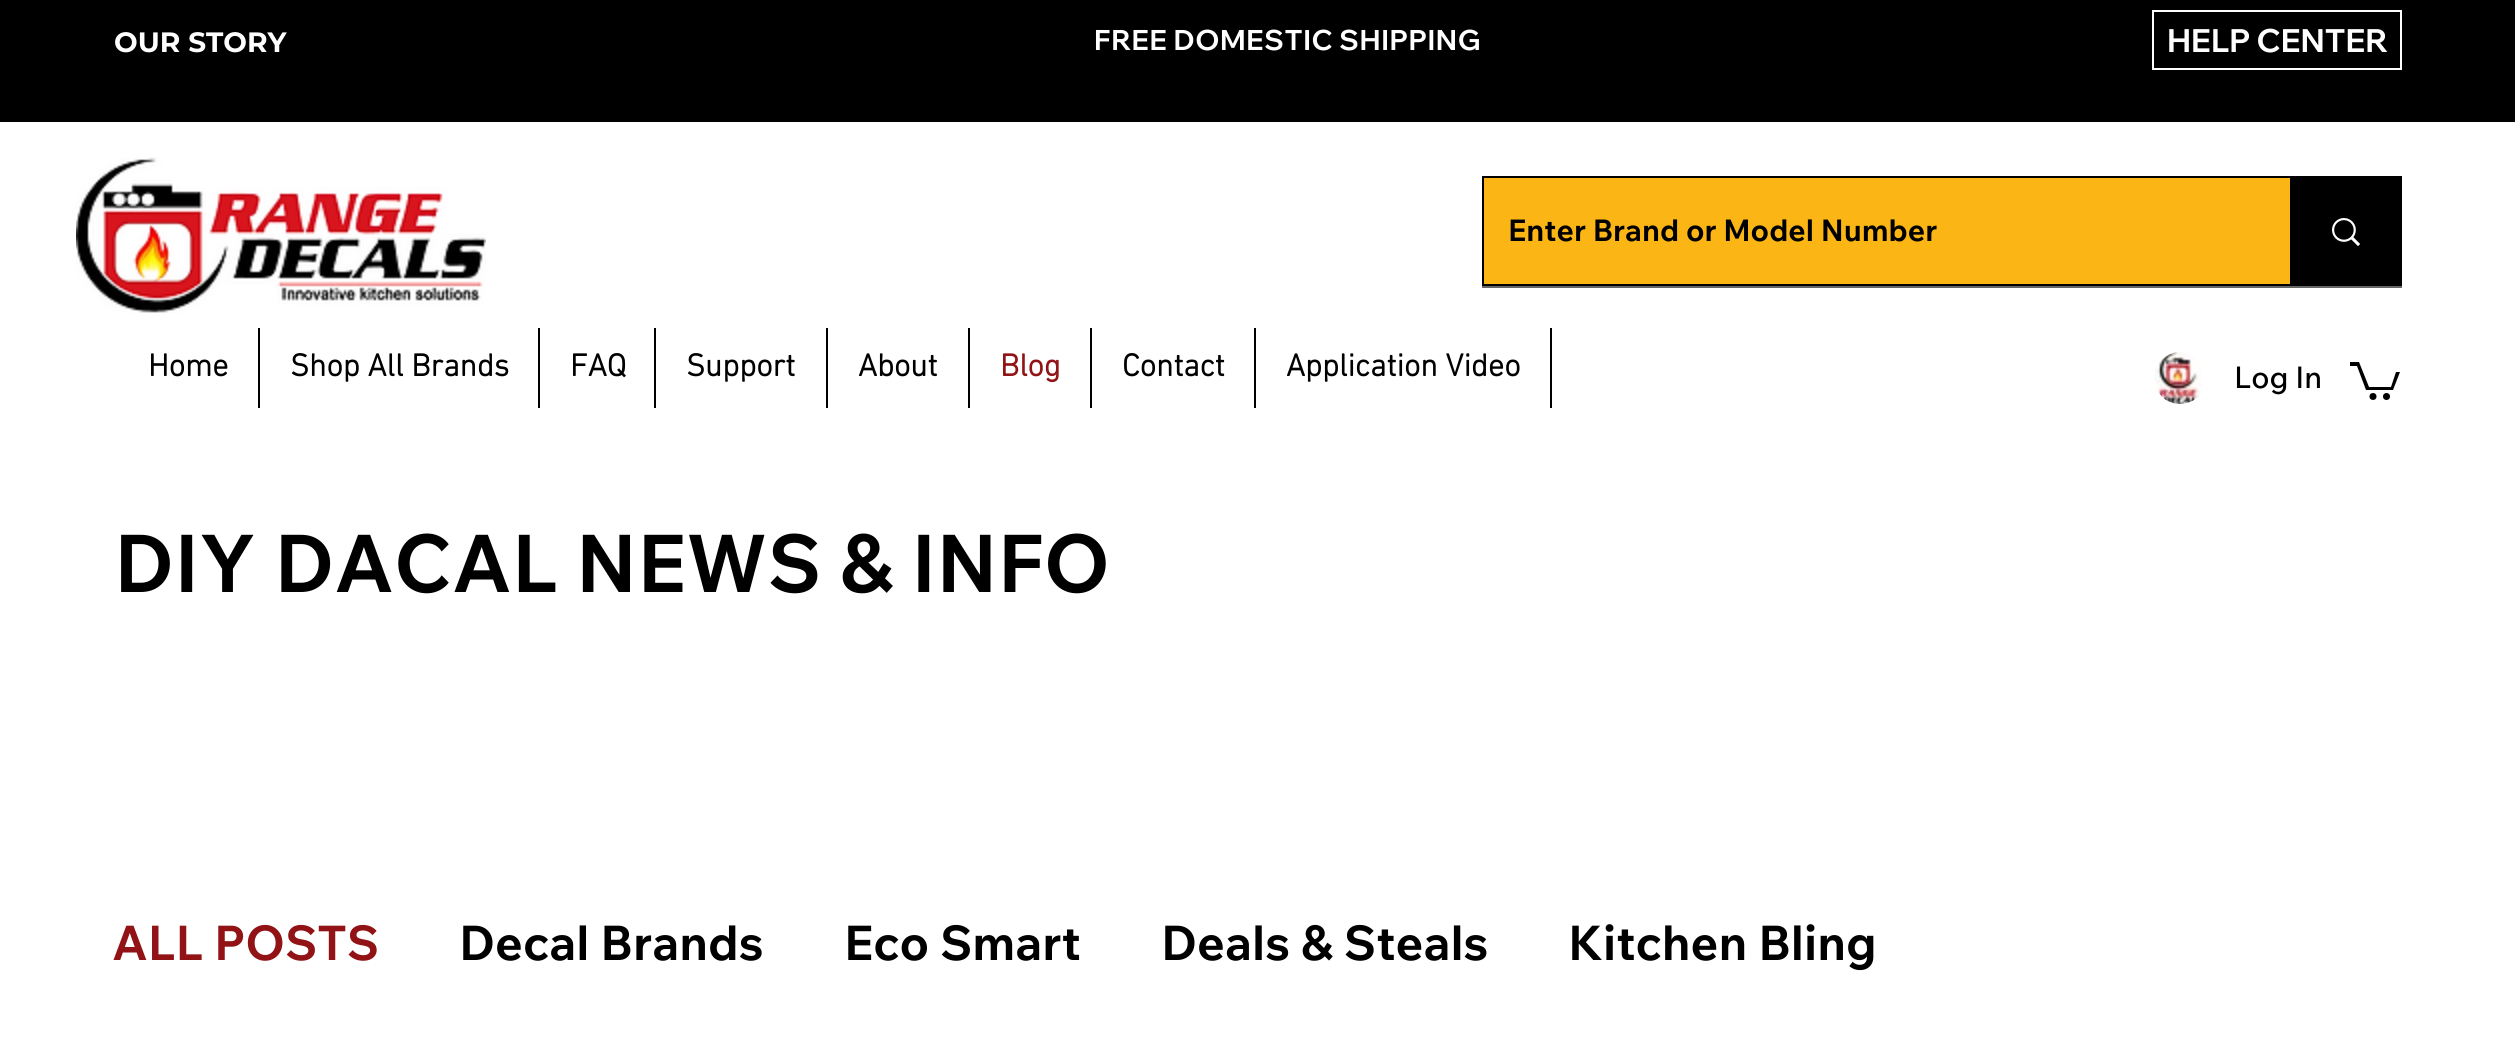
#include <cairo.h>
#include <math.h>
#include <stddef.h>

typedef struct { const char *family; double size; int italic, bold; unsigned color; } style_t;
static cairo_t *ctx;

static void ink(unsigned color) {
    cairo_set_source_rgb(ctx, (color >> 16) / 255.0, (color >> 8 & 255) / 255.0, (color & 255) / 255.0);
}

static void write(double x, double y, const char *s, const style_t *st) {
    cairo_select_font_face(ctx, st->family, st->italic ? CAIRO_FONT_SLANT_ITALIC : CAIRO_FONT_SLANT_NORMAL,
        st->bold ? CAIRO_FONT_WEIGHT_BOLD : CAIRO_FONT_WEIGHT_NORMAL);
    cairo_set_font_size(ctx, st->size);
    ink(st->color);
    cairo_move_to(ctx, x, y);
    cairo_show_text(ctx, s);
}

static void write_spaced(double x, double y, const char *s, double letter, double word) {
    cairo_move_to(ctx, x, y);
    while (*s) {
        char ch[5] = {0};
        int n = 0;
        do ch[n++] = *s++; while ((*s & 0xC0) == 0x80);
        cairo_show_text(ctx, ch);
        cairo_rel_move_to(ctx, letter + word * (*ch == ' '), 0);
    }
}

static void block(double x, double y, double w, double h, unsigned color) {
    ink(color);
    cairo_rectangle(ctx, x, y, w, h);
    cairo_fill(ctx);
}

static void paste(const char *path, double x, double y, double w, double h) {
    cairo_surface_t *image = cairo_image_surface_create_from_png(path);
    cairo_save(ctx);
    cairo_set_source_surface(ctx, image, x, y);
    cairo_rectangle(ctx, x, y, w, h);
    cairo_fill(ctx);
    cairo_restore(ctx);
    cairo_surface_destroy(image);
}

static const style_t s1 = {"Montserrat", 28, 0, 1, 0xffffff};
static const style_t s2 = {"Wix Madefor Display", 32, 0, 1, 0xffffff};
static const style_t s3 = {"Wix Madefor Text", 30, 0, 1, 0x000000};
static const style_t s4 = {"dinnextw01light", 32, 0, 1, 0x000000};
static const style_t s5 = {"dinnextw01light", 32, 0, 1, 0x911315};
static const style_t s6 = {"Wix Madefor Text Medium", 30, 0, 0, 0x000000};
static const style_t s7 = {"Wix Madefor Text", 80, 0, 1, 0x000000};
static const style_t s8 = {"Wix Madefor Text", 48, 0, 1, 0x911315};
static const style_t s9 = {"Wix Madefor Text", 48, 0, 1, 0x000000};

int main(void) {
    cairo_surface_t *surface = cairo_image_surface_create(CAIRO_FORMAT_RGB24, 2515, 1063);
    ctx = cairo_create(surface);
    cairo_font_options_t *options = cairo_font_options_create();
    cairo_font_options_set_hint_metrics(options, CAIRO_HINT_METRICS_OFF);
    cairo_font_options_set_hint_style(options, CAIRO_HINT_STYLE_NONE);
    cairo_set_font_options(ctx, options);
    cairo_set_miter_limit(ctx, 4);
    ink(0xffffff);
    cairo_paint(ctx);
    block(0, 0, 2515, 122, 0x000000);
    write(114, 52, "OUR STORY", &s1);
    cairo_select_font_face(ctx, "Wix Madefor Display", CAIRO_FONT_SLANT_NORMAL, CAIRO_FONT_WEIGHT_BOLD);
    write_spaced(1094, 50, "FREE DOMESTIC SHIPPING", 0.6, 0);
    cairo_rectangle(ctx, 2153, 11, 248, 58);
    cairo_stroke(ctx);
    write(2167, 52, "HELP CENTER", &s2);
    paste("pic1.png", 76, 157, 410, 156);
    block(1482, 286, 920, 2, 0x666666);
    cairo_rectangle(ctx, 1483, 177, 918, 108);
    ink(0x000000);
    cairo_stroke(ctx);
    block(1484, 178, 806, 106, 0xfbb615);
    write(1508, 241, "Enter Brand or Model Number", &s3);
    block(2290, 178, 110, 106, 0x000000);
    paste("pic2.png", 2332, 218, 28, 28);
    write(148, 376, "Home", &s4);
    block(258, 328, 2, 80, 0x000000);
    write(290, 376, "Shop All Brands", &s4);
    block(538, 328, 2, 80, 0x000000);
    write(570, 376, "FAQ", &s4);
    block(654, 328, 2, 80, 0x000000);
    write(686, 376, "Support", &s4);
    block(826, 328, 2, 80, 0x000000);
    write(858, 376, "About", &s4);
    block(968, 328, 2, 80, 0x000000);
    write(1000, 376, "Blog", &s5);
    block(1090, 328, 2, 80, 0x000000);
    write(1122, 376, "Contact", &s4);
    block(1254, 328, 2, 80, 0x000000);
    write(1286, 376, "Application Video", &s4);
    block(1550, 328, 2, 80, 0x000000);
    paste("pic3.png", 2154, 352, 48, 52);
    write(2234, 388, "Log In", &s6);
    cairo_new_path(ctx);
    cairo_move_to(ctx, 2400, 372);
    cairo_line_to(ctx, 2393, 390);
    cairo_line_to(ctx, 2366, 390);
    cairo_line_to(ctx, 2357, 366);
    cairo_line_to(ctx, 2350, 366);
    cairo_line_to(ctx, 2350, 362);
    cairo_line_to(ctx, 2359, 362);
    cairo_line_to(ctx, 2369, 387);
    cairo_line_to(ctx, 2391, 387);
    cairo_line_to(ctx, 2396, 372);
    cairo_fill(ctx);
    cairo_arc(ctx, 2386.5, 396.5, 3.5, 0, 2 * M_PI);
    cairo_fill(ctx);
    cairo_arc(ctx, 2373, 396.5, 3.5, 0, 2 * M_PI);
    cairo_fill(ctx);
    write(114, 592, "DIY DACAL NEWS & INFO", &s7);
    write(112, 960, "ALL POSTS", &s8);
    write(459, 960, "Decal Brands", &s9);
    write(844, 960, "Eco Smart", &s9);
    write(1161, 960, "Deals & Steals", &s9);
    write(1568, 960, "Kitchen Bling", &s9);
    cairo_surface_write_to_png(surface, "screenshot.png");
    cairo_font_options_destroy(options);
    cairo_destroy(ctx);
    cairo_surface_destroy(surface);
    return 0;
}
